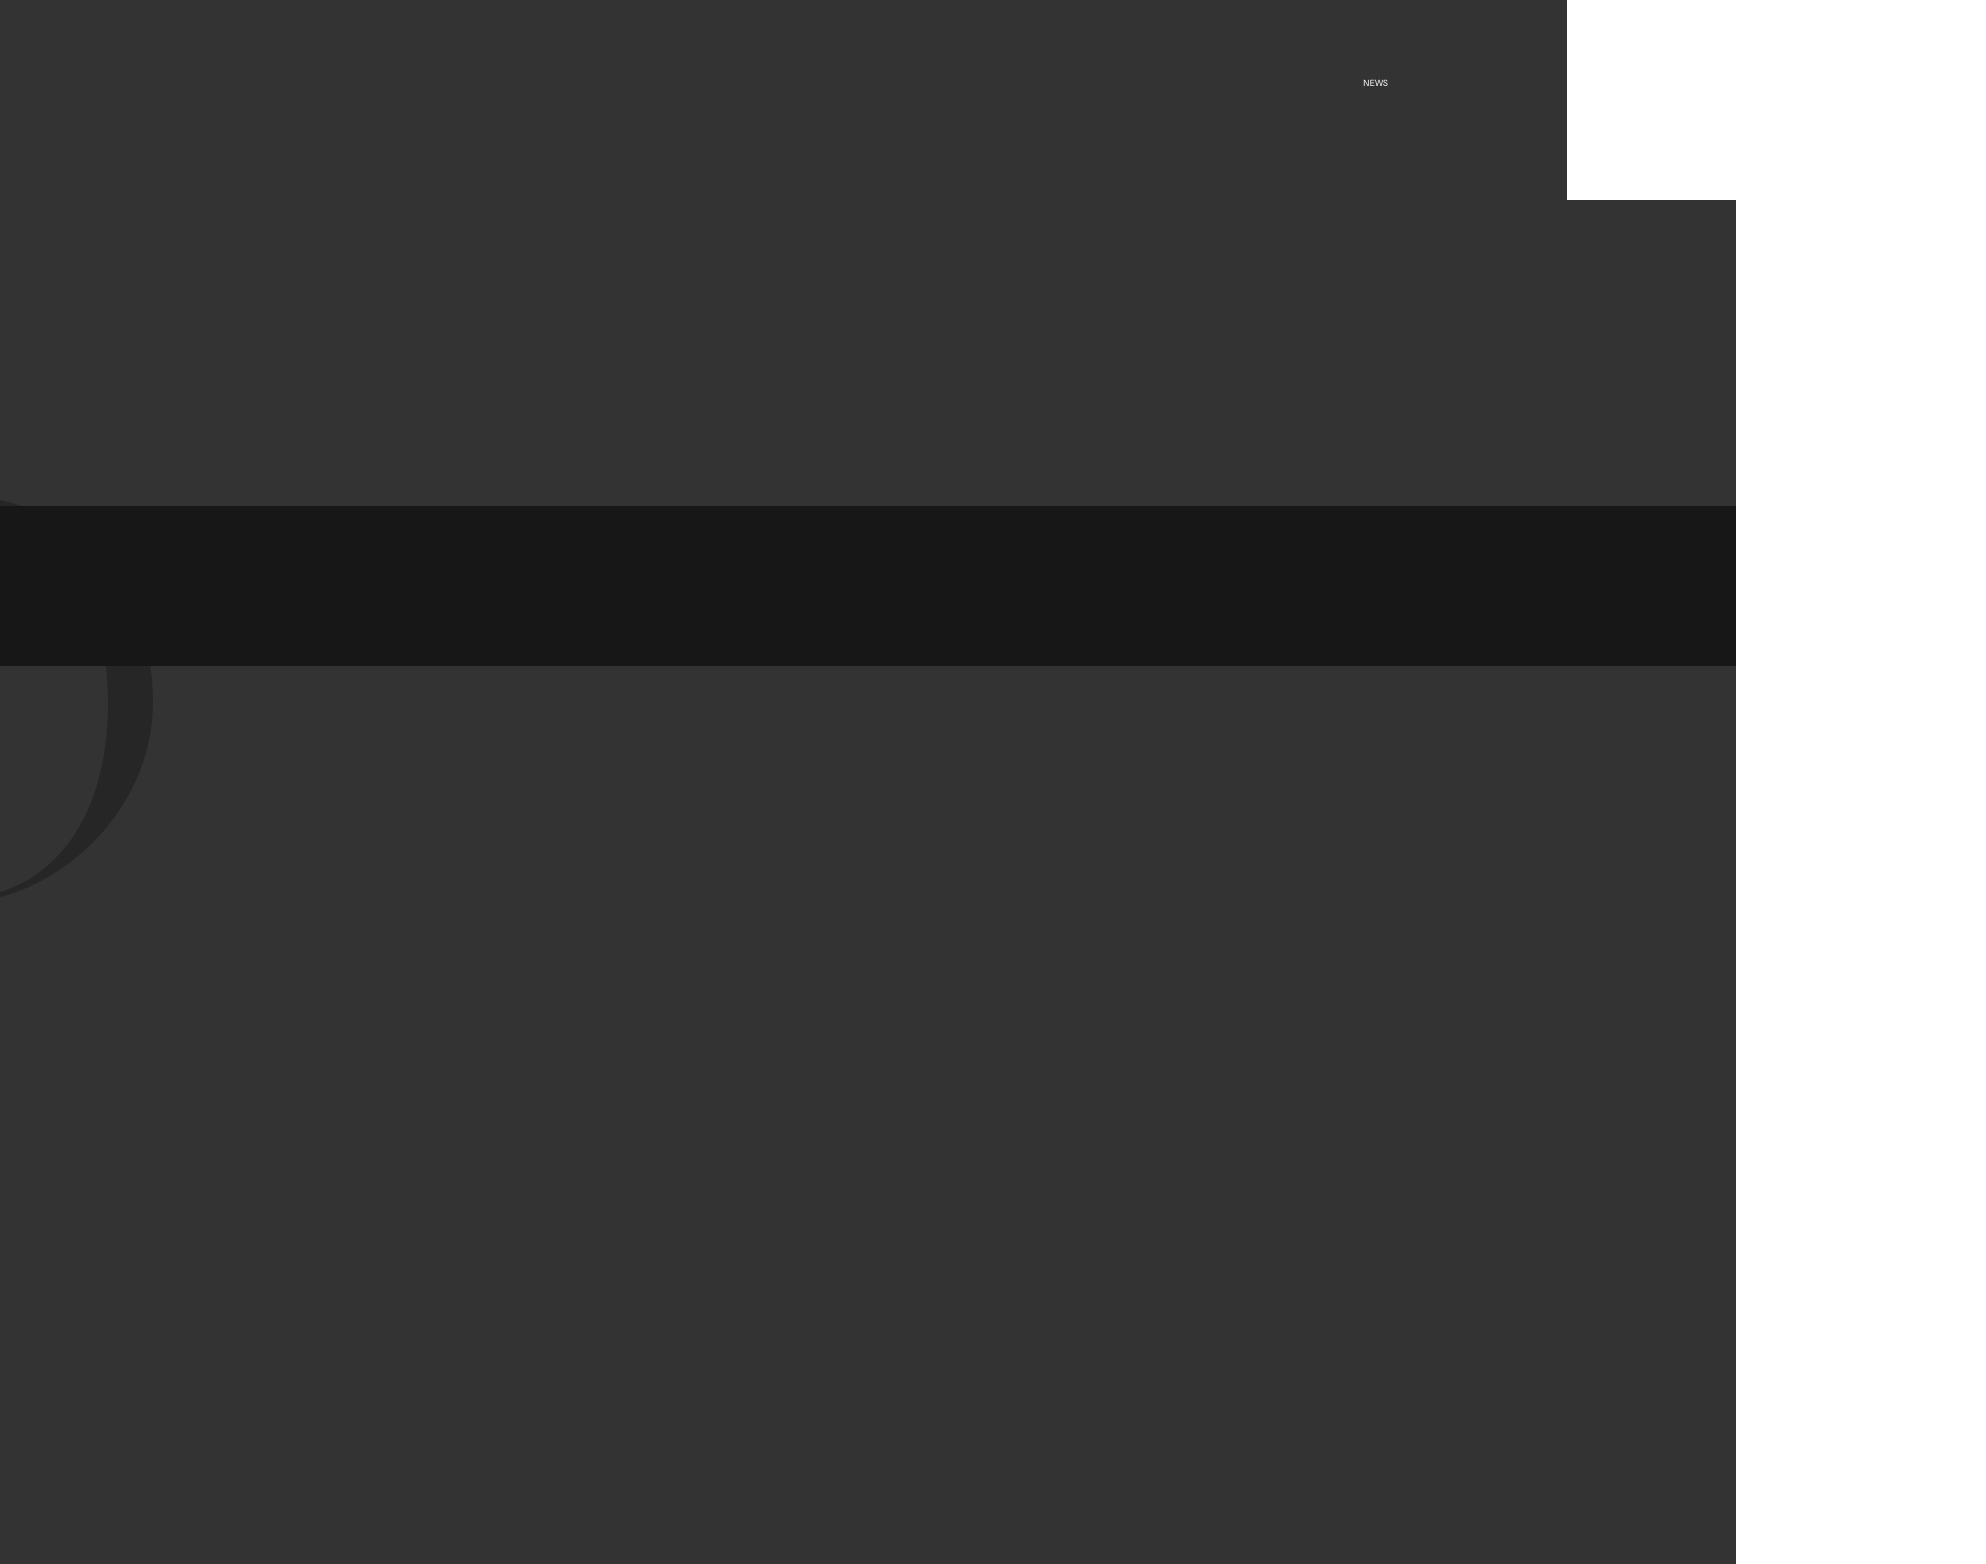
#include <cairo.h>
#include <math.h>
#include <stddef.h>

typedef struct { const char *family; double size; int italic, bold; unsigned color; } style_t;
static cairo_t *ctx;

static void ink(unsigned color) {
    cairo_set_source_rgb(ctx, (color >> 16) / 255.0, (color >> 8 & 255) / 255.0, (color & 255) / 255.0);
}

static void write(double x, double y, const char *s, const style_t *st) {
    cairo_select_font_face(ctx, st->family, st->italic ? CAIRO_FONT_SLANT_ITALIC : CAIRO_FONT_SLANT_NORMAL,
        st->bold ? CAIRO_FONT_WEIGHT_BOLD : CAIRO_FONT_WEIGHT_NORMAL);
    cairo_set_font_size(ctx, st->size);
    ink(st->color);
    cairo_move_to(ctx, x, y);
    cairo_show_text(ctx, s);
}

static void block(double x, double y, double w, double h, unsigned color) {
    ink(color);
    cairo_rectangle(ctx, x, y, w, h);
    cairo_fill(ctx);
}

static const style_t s1 = {"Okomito", 9, 0, 0, 0xffffff};

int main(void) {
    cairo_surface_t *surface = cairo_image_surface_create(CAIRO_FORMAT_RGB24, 1986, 1564);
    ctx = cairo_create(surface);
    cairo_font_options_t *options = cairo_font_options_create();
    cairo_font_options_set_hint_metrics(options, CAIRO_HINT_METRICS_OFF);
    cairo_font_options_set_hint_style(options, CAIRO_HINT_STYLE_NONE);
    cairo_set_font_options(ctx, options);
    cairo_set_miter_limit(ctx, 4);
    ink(0x333333);
    cairo_paint(ctx);
    write(1363, 86, "NEWS", &s1);
    ink(0x262626);
    cairo_set_fill_rule(ctx, CAIRO_FILL_RULE_EVEN_ODD);
    cairo_new_path(ctx);
    cairo_move_to(ctx, 108, 703);
    cairo_curve_to(ctx, 108, 584, 42, 500, -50, 500);
    cairo_curve_to(ctx, -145, 500, -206, 578, -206, 701);
    cairo_curve_to(ctx, -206, 817, -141, 899, -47, 899);
    cairo_curve_to(ctx, 49, 899, 108, 822, 108, 703);
    cairo_move_to(ctx, -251, 700);
    cairo_curve_to(ctx, -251, 588, -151, 494, -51, 494);
    cairo_curve_to(ctx, 66, 494, 153, 580, 153, 702);
    cairo_curve_to(ctx, 153, 814, 53, 904, -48, 904);
    cairo_curve_to(ctx, -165, 904, -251, 821, -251, 700);
    cairo_fill(ctx);
    block(0, 506, 1736, 160, 0x171717);
    block(1736, 0, 250, 1564, 0xffffff);
    block(1567, 0, 169, 200, 0xffffff);
    cairo_surface_write_to_png(surface, "screenshot.png");
    cairo_font_options_destroy(options);
    cairo_destroy(ctx);
    cairo_surface_destroy(surface);
    return 0;
}
